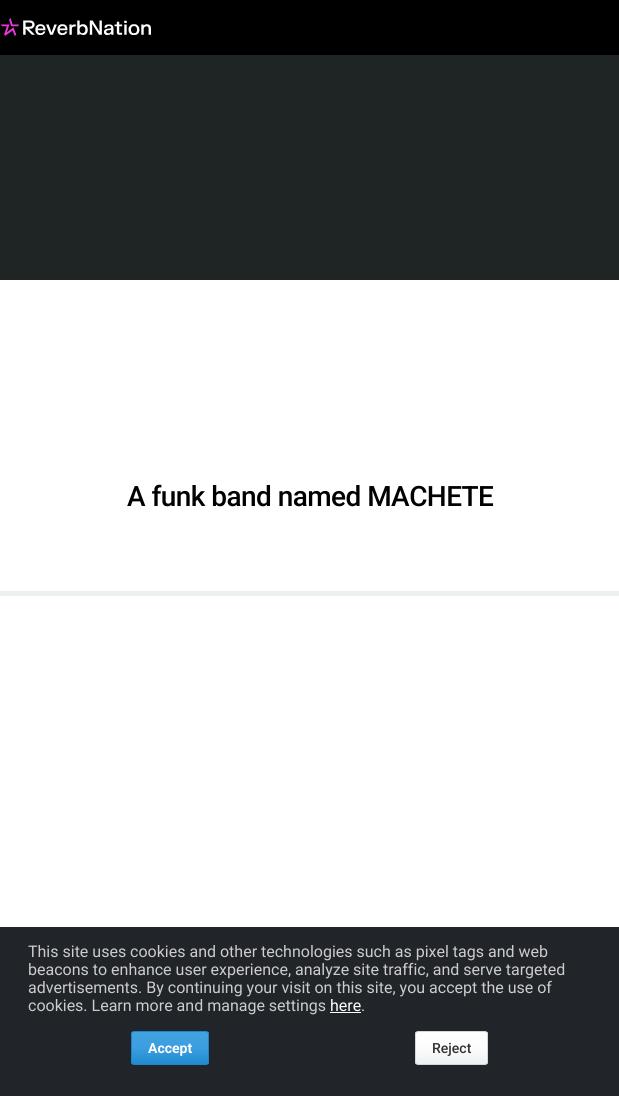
#include <cairo.h>
#include <math.h>
#include <stddef.h>

typedef struct { const char *family; double size; int italic, bold; unsigned color; } style_t;
static cairo_t *ctx;

static void ink(unsigned color) {
    cairo_set_source_rgb(ctx, (color >> 16) / 255.0, (color >> 8 & 255) / 255.0, (color & 255) / 255.0);
}

static void write(double x, double y, const char *s, const style_t *st) {
    cairo_select_font_face(ctx, st->family, st->italic ? CAIRO_FONT_SLANT_ITALIC : CAIRO_FONT_SLANT_NORMAL,
        st->bold ? CAIRO_FONT_WEIGHT_BOLD : CAIRO_FONT_WEIGHT_NORMAL);
    cairo_set_font_size(ctx, st->size);
    ink(st->color);
    cairo_move_to(ctx, x, y);
    cairo_show_text(ctx, s);
}

static void write_spaced(double x, double y, const char *s, double letter, double word) {
    cairo_move_to(ctx, x, y);
    while (*s) {
        char ch[5] = {0};
        int n = 0;
        do ch[n++] = *s++; while ((*s & 0xC0) == 0x80);
        cairo_show_text(ctx, ch);
        cairo_rel_move_to(ctx, letter + word * (*ch == ' '), 0);
    }
}

static void block(double x, double y, double w, double h, unsigned color) {
    ink(color);
    cairo_rectangle(ctx, x, y, w, h);
    cairo_fill(ctx);
}

static void round_path(double x, double y, double w, double h, double r) {
    cairo_new_sub_path(ctx);
    cairo_arc(ctx, x + w - r, y + h - r, r, 0, M_PI / 2);
    cairo_arc(ctx, x + r, y + h - r, r, M_PI / 2, M_PI);
    cairo_arc(ctx, x + r, y + r, r, M_PI, 1.5 * M_PI);
    cairo_arc(ctx, x + w - r, y + r, r, 1.5 * M_PI, 2 * M_PI);
    cairo_close_path(ctx);
}

static void paste(const char *path, double x, double y, double w, double h) {
    cairo_surface_t *image = cairo_image_surface_create_from_png(path);
    cairo_save(ctx);
    cairo_set_source_surface(ctx, image, x, y);
    cairo_rectangle(ctx, x, y, w, h);
    cairo_fill(ctx);
    cairo_restore(ctx);
    cairo_surface_destroy(image);
}

static const style_t s1 = {"Roboto", 16, 0, 0, 0xcccccc};
static const style_t s2 = {"Roboto", 16, 0, 0, 0xffffff};
static const style_t s3 = {"Roboto", 14, 0, 1, 0xffffff};
static const style_t s4 = {"Roboto Medium", 14, 0, 0, 0x333333};

int main(void) {
    cairo_surface_t *surface = cairo_image_surface_create(CAIRO_FORMAT_RGB24, 619, 1096);
    ctx = cairo_create(surface);
    cairo_font_options_t *options = cairo_font_options_create();
    cairo_font_options_set_hint_metrics(options, CAIRO_HINT_METRICS_OFF);
    cairo_font_options_set_hint_style(options, CAIRO_HINT_STYLE_NONE);
    cairo_set_font_options(ctx, options);
    cairo_set_miter_limit(ctx, 4);
    cairo_pattern_t *gradient;
    ink(0xffffff);
    cairo_paint(ctx);
    block(0, 0, 619, 55, 0x000000);
    paste("pic1.png", 1, 18, 150, 18);
    block(0, 55, 619, 225, 0x1f2524);
    cairo_select_font_face(ctx, "Roboto Medium", CAIRO_FONT_SLANT_NORMAL, CAIRO_FONT_WEIGHT_NORMAL);
    cairo_set_font_size(ctx, 28);
    ink(0x000000);
    write_spaced(127, 506, "A funk band named MACHETE", -0.55, 0);
    block(0, 591, 619, 5, 0xedf0f1);
    block(0, 927, 619, 169, 0x212529);
    write(28, 957, "This site uses cookies and other technologies such as pixel tags and web", &s1);
    write(28, 975, "beacons to enhance user experience, analyze site traffic, and serve targeted", &s1);
    write(28, 993, "advertisements. By continuing your visit on this site, you accept the use of", &s1);
    write(28, 1011, "cookies. Learn more and manage settings", &s1);
    write(330, 1011, "here", &s2);
    block(330, 1012, 31, 1, 0xffffff);
    write(361, 1011, ".", &s1);
    cairo_save(ctx);
    round_path(131, 1031, 78, 34, 3);
    cairo_clip(ctx);
    gradient = cairo_pattern_create_linear(170, 1032, 170, 1064);
    cairo_pattern_add_color_stop_rgba(gradient, 0, 0.263, 0.635, 0.882, 1);
    cairo_pattern_add_color_stop_rgba(gradient, 0.5, 0.227, 0.62, 0.878, 1);
    cairo_pattern_add_color_stop_rgba(gradient, 1, 0.129, 0.545, 0.816, 1);
    cairo_set_source(ctx, gradient);
    cairo_pattern_destroy(gradient);
    cairo_rectangle(ctx, 131, 1032, 78, 32);
    cairo_fill(ctx);
    cairo_restore(ctx);
    round_path(131.5, 1031.5, 77, 33, 2.5);
    ink(0x1f85c8);
    cairo_set_line_width(ctx, 1);
    cairo_stroke(ctx);
    write(148, 1053, "Accept", &s3);
    cairo_save(ctx);
    round_path(415, 1031, 73, 34, 3);
    cairo_clip(ctx);
    gradient = cairo_pattern_create_linear(452, 1032, 452, 1064);
    cairo_pattern_add_color_stop_rgba(gradient, 0, 1, 1, 1, 1);
    cairo_pattern_add_color_stop_rgba(gradient, 0.5, 0.988, 0.988, 0.988, 1);
    cairo_pattern_add_color_stop_rgba(gradient, 1, 0.929, 0.945, 0.949, 1);
    cairo_set_source(ctx, gradient);
    cairo_pattern_destroy(gradient);
    cairo_rectangle(ctx, 415, 1032, 73, 32);
    cairo_fill(ctx);
    cairo_restore(ctx);
    round_path(415.5, 1031.5, 72, 33, 2.5);
    ink(0xd0d8db);
    cairo_stroke(ctx);
    write(432, 1053, "Reject", &s4);
    cairo_surface_write_to_png(surface, "screenshot.png");
    cairo_font_options_destroy(options);
    cairo_destroy(ctx);
    cairo_surface_destroy(surface);
    return 0;
}
